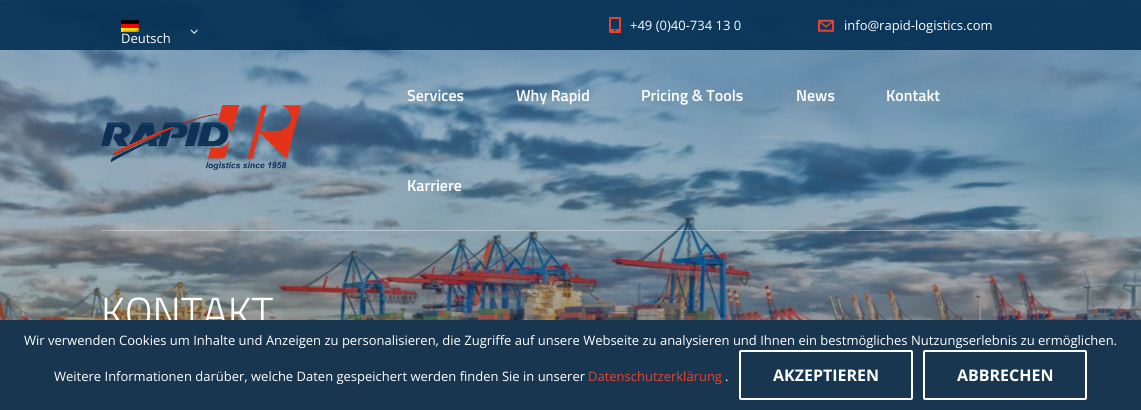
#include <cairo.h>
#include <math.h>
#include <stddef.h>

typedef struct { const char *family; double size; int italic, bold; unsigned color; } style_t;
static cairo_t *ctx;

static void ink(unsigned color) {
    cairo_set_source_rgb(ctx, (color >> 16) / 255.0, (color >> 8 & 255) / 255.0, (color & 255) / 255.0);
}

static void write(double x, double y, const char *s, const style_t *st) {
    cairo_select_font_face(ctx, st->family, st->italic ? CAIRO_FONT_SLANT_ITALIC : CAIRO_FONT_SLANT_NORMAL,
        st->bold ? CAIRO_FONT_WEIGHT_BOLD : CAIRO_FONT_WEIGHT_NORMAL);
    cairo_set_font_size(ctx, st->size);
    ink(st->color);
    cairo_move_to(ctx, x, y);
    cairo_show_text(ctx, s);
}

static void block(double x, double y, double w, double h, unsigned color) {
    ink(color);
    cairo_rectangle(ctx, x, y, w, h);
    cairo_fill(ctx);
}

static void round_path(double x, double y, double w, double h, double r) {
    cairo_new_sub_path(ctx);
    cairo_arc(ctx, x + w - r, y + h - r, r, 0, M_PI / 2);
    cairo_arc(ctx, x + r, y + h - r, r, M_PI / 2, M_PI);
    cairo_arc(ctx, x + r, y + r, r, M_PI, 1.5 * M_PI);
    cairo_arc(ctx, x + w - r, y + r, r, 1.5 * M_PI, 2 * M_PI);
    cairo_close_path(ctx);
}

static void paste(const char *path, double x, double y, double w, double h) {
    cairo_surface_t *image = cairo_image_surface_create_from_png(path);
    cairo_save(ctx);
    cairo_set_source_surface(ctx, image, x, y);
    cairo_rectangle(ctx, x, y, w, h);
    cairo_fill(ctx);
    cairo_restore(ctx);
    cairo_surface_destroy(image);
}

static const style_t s1 = {"Open Sans", 13, 0, 0, 0xffffff};
static const style_t s2 = {"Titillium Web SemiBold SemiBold", 16, 0, 0, 0xffffff};
static const style_t s3 = {"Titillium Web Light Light", 42, 0, 0, 0xffffff};
static const style_t s4 = {"Open Sans", 13, 0, 0, 0xe64331};
static const style_t s5 = {"Open Sans", 16, 0, 1, 0xffffff};

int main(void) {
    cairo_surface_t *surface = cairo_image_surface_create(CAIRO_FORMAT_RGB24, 1141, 410);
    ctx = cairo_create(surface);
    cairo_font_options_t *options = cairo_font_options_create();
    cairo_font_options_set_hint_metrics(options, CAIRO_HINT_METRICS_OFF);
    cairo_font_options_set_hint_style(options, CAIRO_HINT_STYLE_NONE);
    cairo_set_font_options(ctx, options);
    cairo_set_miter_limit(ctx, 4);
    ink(0xffffff);
    cairo_paint(ctx);
    paste("pic1.png", 0, 0, 1141, 320);
    cairo_set_source_rgba(ctx, 0.012, 0.184, 0.329, 0.9);
    cairo_rectangle(ctx, 0, 0, 1141, 50);
    cairo_fill(ctx);
    paste("pic2.png", 609, 17, 12, 16);
    write(630, 30, "+49 (0)40-734 13 0", &s1);
    paste("pic3.png", 818, 19, 16, 13);
    write(844, 30, "info@rapid-logistics.com", &s1);
    paste("pic4.png", 121, 20, 18, 12);
    paste("pic5.png", 190, 29, 8, 5);
    write(121, 43, "Deutsch", &s1);
    cairo_set_source_rgba(ctx, 1, 1, 1, 0.35);
    cairo_rectangle(ctx, 101, 230, 940, 1);
    cairo_fill(ctx);
    paste("pic6.png", 101, 105, 200, 65);
    write(407, 101, "Services", &s2);
    write(516, 101, "Why Rapid", &s2);
    write(641, 101, "Pricing & Tools", &s2);
    write(796, 101, "News", &s2);
    write(886, 101, "Kontakt", &s2);
    write(407, 191, "Karriere", &s2);
    write(101, 327, "KONTAKT", &s3);
    block(0, 320, 1141, 90, 0x183650);
    write(24, 345, "Wir verwenden Cookies um Inhalte und Anzeigen zu personalisieren, die Zugriffe auf unsere Webseite zu analysieren und Ihnen ein bestmögliches Nutzungserlebnis zu ermöglichen.", &s1);
    write(54, 381, "Weitere Informationen darüber, welche Daten gespeichert werden finden Sie in unserer", &s1);
    write(588, 381, "Datenschutzerklärung", &s4);
    write(725, 381, ".", &s1);
    round_path(740, 351, 172, 48, 1);
    cairo_stroke(ctx);
    write(773, 381, "AKZEPTIEREN", &s5);
    round_path(924, 351, 162, 48, 1);
    cairo_stroke(ctx);
    write(957, 381, "ABBRECHEN", &s5);
    cairo_surface_write_to_png(surface, "screenshot.png");
    cairo_font_options_destroy(options);
    cairo_destroy(ctx);
    cairo_surface_destroy(surface);
    return 0;
}
